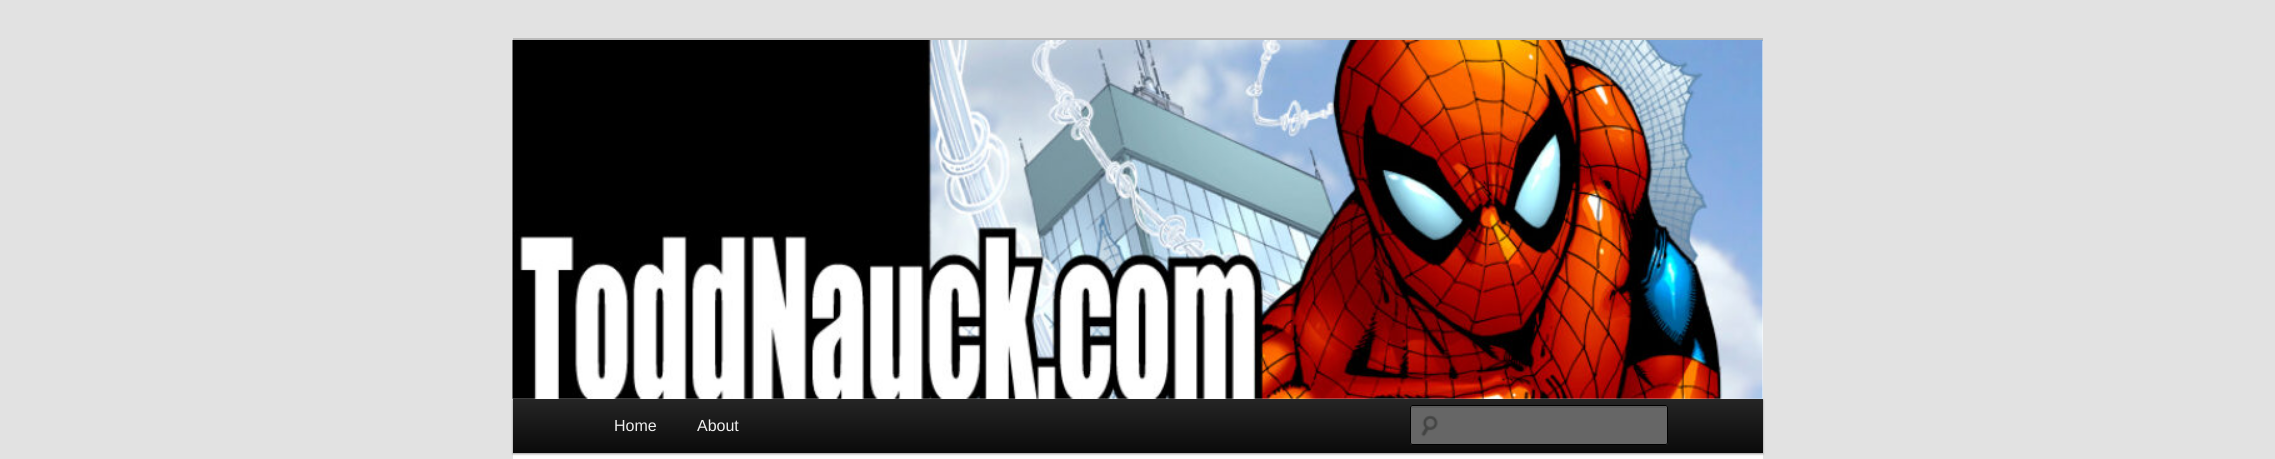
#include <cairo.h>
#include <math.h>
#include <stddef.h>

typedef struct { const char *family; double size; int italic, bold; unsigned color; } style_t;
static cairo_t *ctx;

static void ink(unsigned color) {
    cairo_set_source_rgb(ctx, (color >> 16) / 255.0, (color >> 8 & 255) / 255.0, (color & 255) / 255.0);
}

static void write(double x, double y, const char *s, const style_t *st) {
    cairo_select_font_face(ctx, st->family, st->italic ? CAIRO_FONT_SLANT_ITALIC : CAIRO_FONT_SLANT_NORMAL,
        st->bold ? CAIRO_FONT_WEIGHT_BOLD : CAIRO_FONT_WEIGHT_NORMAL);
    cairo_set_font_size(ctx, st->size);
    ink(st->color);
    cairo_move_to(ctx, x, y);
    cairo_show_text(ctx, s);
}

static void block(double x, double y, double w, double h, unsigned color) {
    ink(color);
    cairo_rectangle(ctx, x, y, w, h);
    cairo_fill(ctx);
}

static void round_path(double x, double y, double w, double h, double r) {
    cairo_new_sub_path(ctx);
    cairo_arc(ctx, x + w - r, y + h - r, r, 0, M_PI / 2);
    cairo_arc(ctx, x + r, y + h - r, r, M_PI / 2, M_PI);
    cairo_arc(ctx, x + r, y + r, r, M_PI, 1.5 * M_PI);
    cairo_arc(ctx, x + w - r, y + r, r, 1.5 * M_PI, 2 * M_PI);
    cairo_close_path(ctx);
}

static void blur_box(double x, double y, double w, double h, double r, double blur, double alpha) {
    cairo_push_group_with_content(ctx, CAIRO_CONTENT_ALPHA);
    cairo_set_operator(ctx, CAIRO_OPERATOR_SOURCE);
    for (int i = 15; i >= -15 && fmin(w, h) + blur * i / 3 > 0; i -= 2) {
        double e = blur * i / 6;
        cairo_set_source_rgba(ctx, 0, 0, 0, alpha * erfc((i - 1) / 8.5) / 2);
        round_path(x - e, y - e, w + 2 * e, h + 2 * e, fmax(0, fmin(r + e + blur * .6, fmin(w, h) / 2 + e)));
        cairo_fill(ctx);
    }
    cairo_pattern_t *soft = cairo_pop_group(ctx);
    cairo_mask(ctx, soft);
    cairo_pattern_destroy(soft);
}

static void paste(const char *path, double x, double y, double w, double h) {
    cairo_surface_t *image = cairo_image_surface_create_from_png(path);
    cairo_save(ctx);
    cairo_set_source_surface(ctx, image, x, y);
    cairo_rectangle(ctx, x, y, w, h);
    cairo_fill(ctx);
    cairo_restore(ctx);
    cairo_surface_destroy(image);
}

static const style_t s1 = {"Liberation Sans", 16, 0, 0, 0xeeeeee};

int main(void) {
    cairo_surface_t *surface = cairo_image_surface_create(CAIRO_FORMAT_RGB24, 2275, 459);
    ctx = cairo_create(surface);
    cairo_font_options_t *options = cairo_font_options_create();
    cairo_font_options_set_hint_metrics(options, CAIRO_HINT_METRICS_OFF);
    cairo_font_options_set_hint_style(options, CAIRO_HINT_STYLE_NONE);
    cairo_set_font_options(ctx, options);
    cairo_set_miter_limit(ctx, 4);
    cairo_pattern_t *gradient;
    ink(0xe2e2e2);
    cairo_paint(ctx);
    block(513, 41, 1250, 418, 0xffffff);
    block(513, 38, 1250, 3, 0xbbbbbb);
    ink(0x000000);
    blur_box(513, 400, 1250, 54, 0, 1, 0.4);
    paste("pic1.png", 512, 40, 1251, 359);
    gradient = cairo_pattern_create_linear(1138, 399, 1138, 453);
    cairo_pattern_add_color_stop_rgba(gradient, 0, 0.145, 0.145, 0.145, 1);
    cairo_pattern_add_color_stop_rgba(gradient, 1, 0.039, 0.039, 0.039, 1);
    cairo_set_source(ctx, gradient);
    cairo_pattern_destroy(gradient);
    cairo_rectangle(ctx, 513, 399, 1250, 54);
    cairo_fill(ctx);
    write(614, 431, "Home", &s1);
    write(697, 431, "About", &s1);
    ink(0x666666);
    round_path(1410, 405, 258, 40, 2.5);
    cairo_fill(ctx);
    paste("pic2.png", 1421, 415, 17, 22);
    ink(0x5c5c5c);
    cairo_new_path(ctx);
    cairo_move_to(ctx, 1412, 408);
    cairo_line_to(ctx, 1665, 408);
    cairo_curve_to(ctx, 1666, 408, 1666, 408, 1666, 409);
    cairo_curve_to(ctx, 1666, 408, 1666, 406, 1665, 406);
    cairo_line_to(ctx, 1411, 406);
    cairo_line_to(ctx, 1411, 409);
    cairo_close_path(ctx);
    cairo_fill(ctx);
    round_path(1410.5, 405.5, 257, 39, 2);
    ink(0x000000);
    cairo_set_line_width(ctx, 1);
    cairo_stroke(ctx);
    cairo_surface_write_to_png(surface, "screenshot.png");
    cairo_font_options_destroy(options);
    cairo_destroy(ctx);
    cairo_surface_destroy(surface);
    return 0;
}
